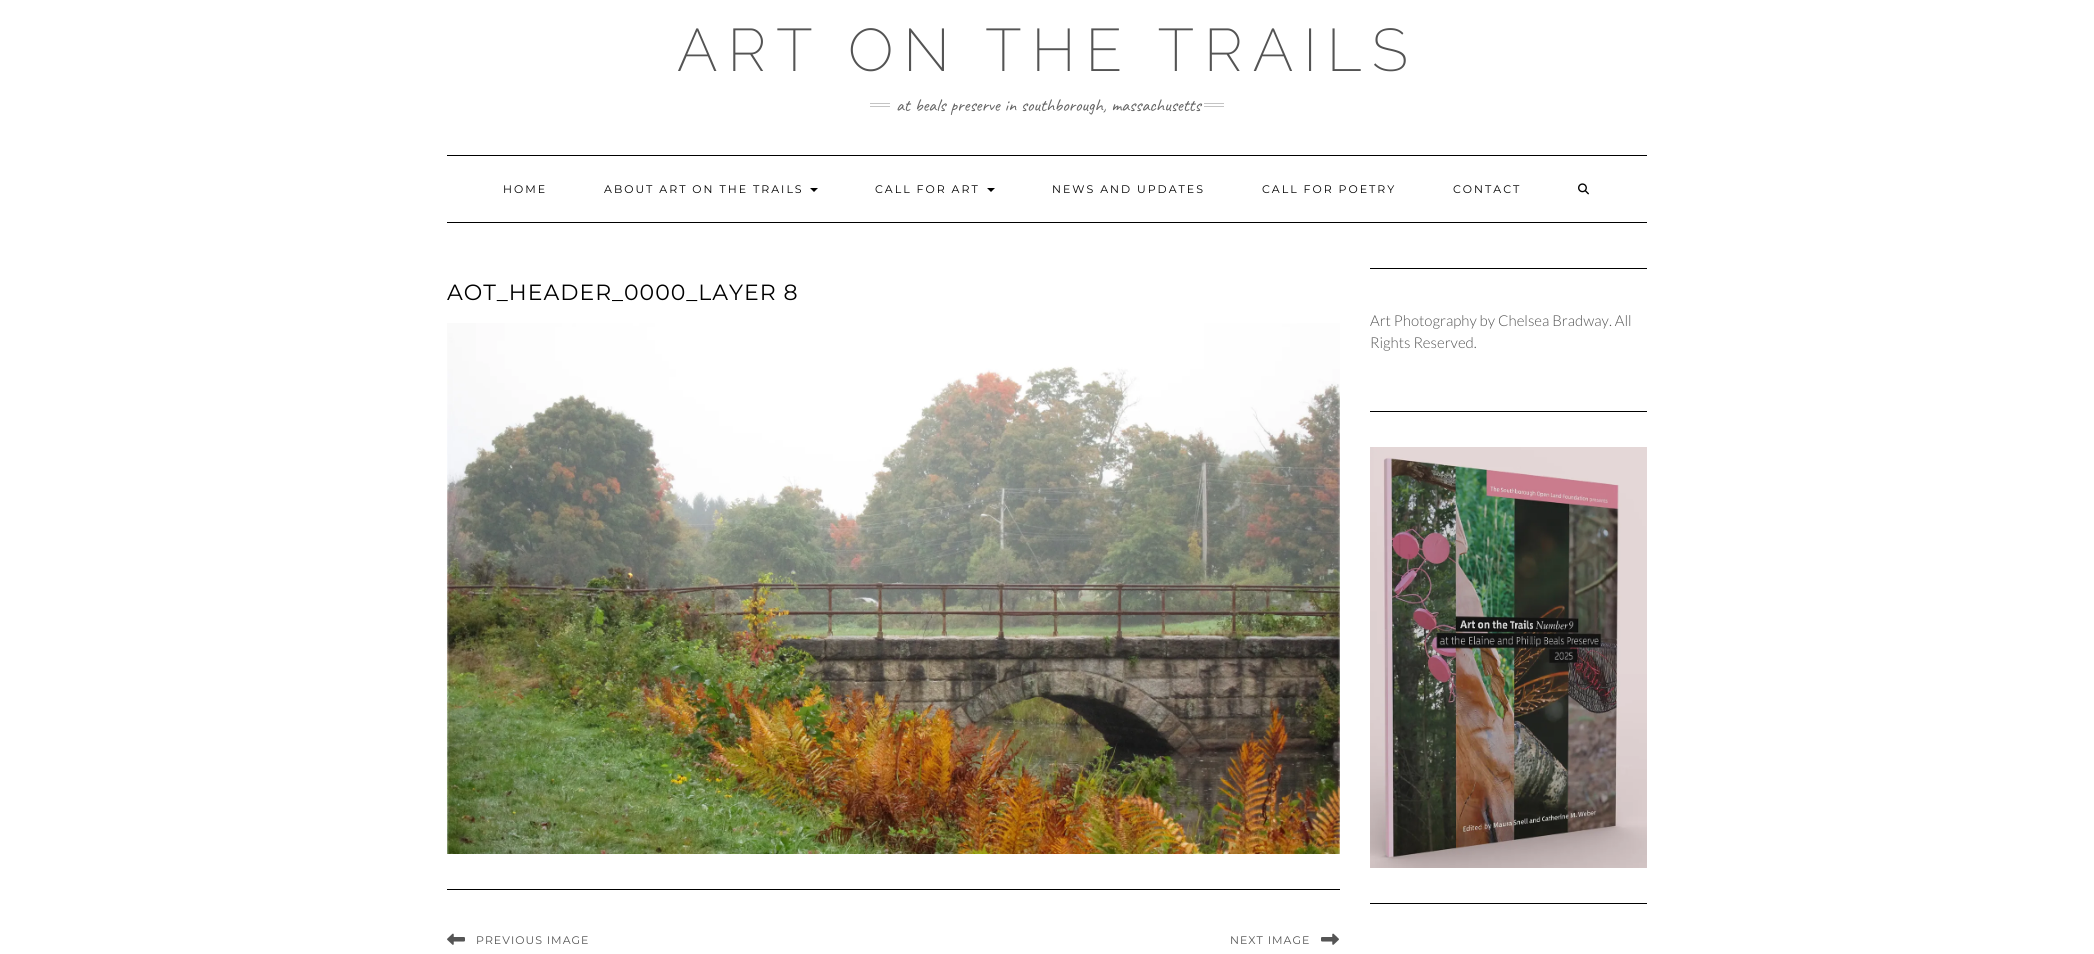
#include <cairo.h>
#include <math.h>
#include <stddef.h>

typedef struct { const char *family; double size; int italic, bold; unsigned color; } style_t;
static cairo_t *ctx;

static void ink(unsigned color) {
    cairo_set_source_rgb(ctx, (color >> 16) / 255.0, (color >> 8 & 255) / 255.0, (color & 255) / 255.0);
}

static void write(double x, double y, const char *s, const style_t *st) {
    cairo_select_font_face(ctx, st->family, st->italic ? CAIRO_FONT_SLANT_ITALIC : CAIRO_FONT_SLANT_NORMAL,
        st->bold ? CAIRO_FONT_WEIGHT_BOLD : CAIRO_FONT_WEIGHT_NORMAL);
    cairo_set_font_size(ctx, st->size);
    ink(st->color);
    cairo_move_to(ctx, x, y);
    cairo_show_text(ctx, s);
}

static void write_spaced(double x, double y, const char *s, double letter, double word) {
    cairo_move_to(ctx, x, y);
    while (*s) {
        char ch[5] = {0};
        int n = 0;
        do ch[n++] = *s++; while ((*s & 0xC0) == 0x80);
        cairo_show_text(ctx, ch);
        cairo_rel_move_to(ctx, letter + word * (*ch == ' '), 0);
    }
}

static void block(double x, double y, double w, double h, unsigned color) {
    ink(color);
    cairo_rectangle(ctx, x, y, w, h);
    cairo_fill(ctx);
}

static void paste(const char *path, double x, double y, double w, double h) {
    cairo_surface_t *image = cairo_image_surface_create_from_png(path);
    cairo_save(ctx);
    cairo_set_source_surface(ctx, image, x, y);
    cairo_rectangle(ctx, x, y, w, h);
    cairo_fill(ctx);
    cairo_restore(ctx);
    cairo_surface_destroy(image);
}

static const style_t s1 = {"Lato Light", 15, 0, 0, 0x545454};

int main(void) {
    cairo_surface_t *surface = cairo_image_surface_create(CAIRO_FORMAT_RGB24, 2094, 954);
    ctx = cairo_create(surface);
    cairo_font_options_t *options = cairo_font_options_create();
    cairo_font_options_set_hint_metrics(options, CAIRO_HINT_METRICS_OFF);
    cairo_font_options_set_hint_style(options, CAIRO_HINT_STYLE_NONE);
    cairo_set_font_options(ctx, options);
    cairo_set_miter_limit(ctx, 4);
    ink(0xffffff);
    cairo_paint(ctx);
    cairo_select_font_face(ctx, "Raleway Thin", CAIRO_FONT_SLANT_NORMAL, CAIRO_FONT_WEIGHT_NORMAL);
    cairo_set_font_size(ctx, 60);
    ink(0x545454);
    write_spaced(677, 71, "ART ON THE TRAILS", 10, 0);
    block(870, 103, 20, 1, 0xc4c4c4);
    block(870, 106, 20, 1, 0xc4c4c4);
    cairo_select_font_face(ctx, "Caveat", CAIRO_FONT_SLANT_NORMAL, CAIRO_FONT_WEIGHT_NORMAL);
    cairo_set_font_size(ctx, 18);
    ink(0x646464);
    write_spaced(896, 111, "at beals preserve in southborough, massachusetts", 0, 0.5);
    block(1204, 103, 20, 1, 0xc4c4c4);
    block(1204, 106, 20, 1, 0xc4c4c4);
    block(447, 155, 1200, 1, 0x000000);
    block(447, 222, 1200, 1, 0x000000);
    cairo_select_font_face(ctx, "Montserrat", CAIRO_FONT_SLANT_NORMAL, CAIRO_FONT_WEIGHT_NORMAL);
    cairo_set_font_size(ctx, 11);
    write_spaced(503, 193, "HOME", 2, 0);
    write_spaced(604, 193, "ABOUT ART ON THE TRAILS", 2, 0);
    cairo_new_path(ctx);
    cairo_move_to(ctx, 810, 188);
    cairo_line_to(ctx, 818, 188);
    cairo_line_to(ctx, 814, 192);
    cairo_close_path(ctx);
    cairo_fill(ctx);
    write_spaced(875, 193, "CALL FOR ART", 2, 0);
    cairo_new_path(ctx);
    cairo_move_to(ctx, 987, 188);
    cairo_line_to(ctx, 995, 188);
    cairo_line_to(ctx, 991, 192);
    cairo_close_path(ctx);
    cairo_fill(ctx);
    write_spaced(1052, 193, "NEWS AND UPDATES", 2, 0);
    write_spaced(1262, 193, "CALL FOR POETRY", 2, 0);
    write_spaced(1453, 193, "CONTACT", 2, 0);
    paste("pic1.png", 1578, 183, 11, 12);
    cairo_set_font_size(ctx, 22);
    write_spaced(447, 300, "AOT_HEADER_0000_LAYER 8", 1, 0);
    paste("pic2.png", 447, 323, 893, 531);
    block(447, 889, 893, 1, 0x000000);
    paste("pic3.png", 447, 933, 18, 12);
    cairo_set_font_size(ctx, 11);
    ink(0x545454);
    write_spaced(476, 944, "PREVIOUS IMAGE", 1, 0);
    write_spaced(1230, 944, "NEXT IMAGE", 1, 0);
    paste("pic4.png", 1321, 933, 18, 12);
    block(1370, 268, 277, 1, 0x000000);
    block(1370, 411, 277, 1, 0x000000);
    write(1370, 326, "Art Photography by Chelsea Bradway. All", &s1);
    write(1370, 348, "Rights Reserved.", &s1);
    paste("pic5.png", 1370, 447, 277, 421);
    block(1370, 903, 277, 1, 0x000000);
    cairo_surface_write_to_png(surface, "screenshot.png");
    cairo_font_options_destroy(options);
    cairo_destroy(ctx);
    cairo_surface_destroy(surface);
    return 0;
}
